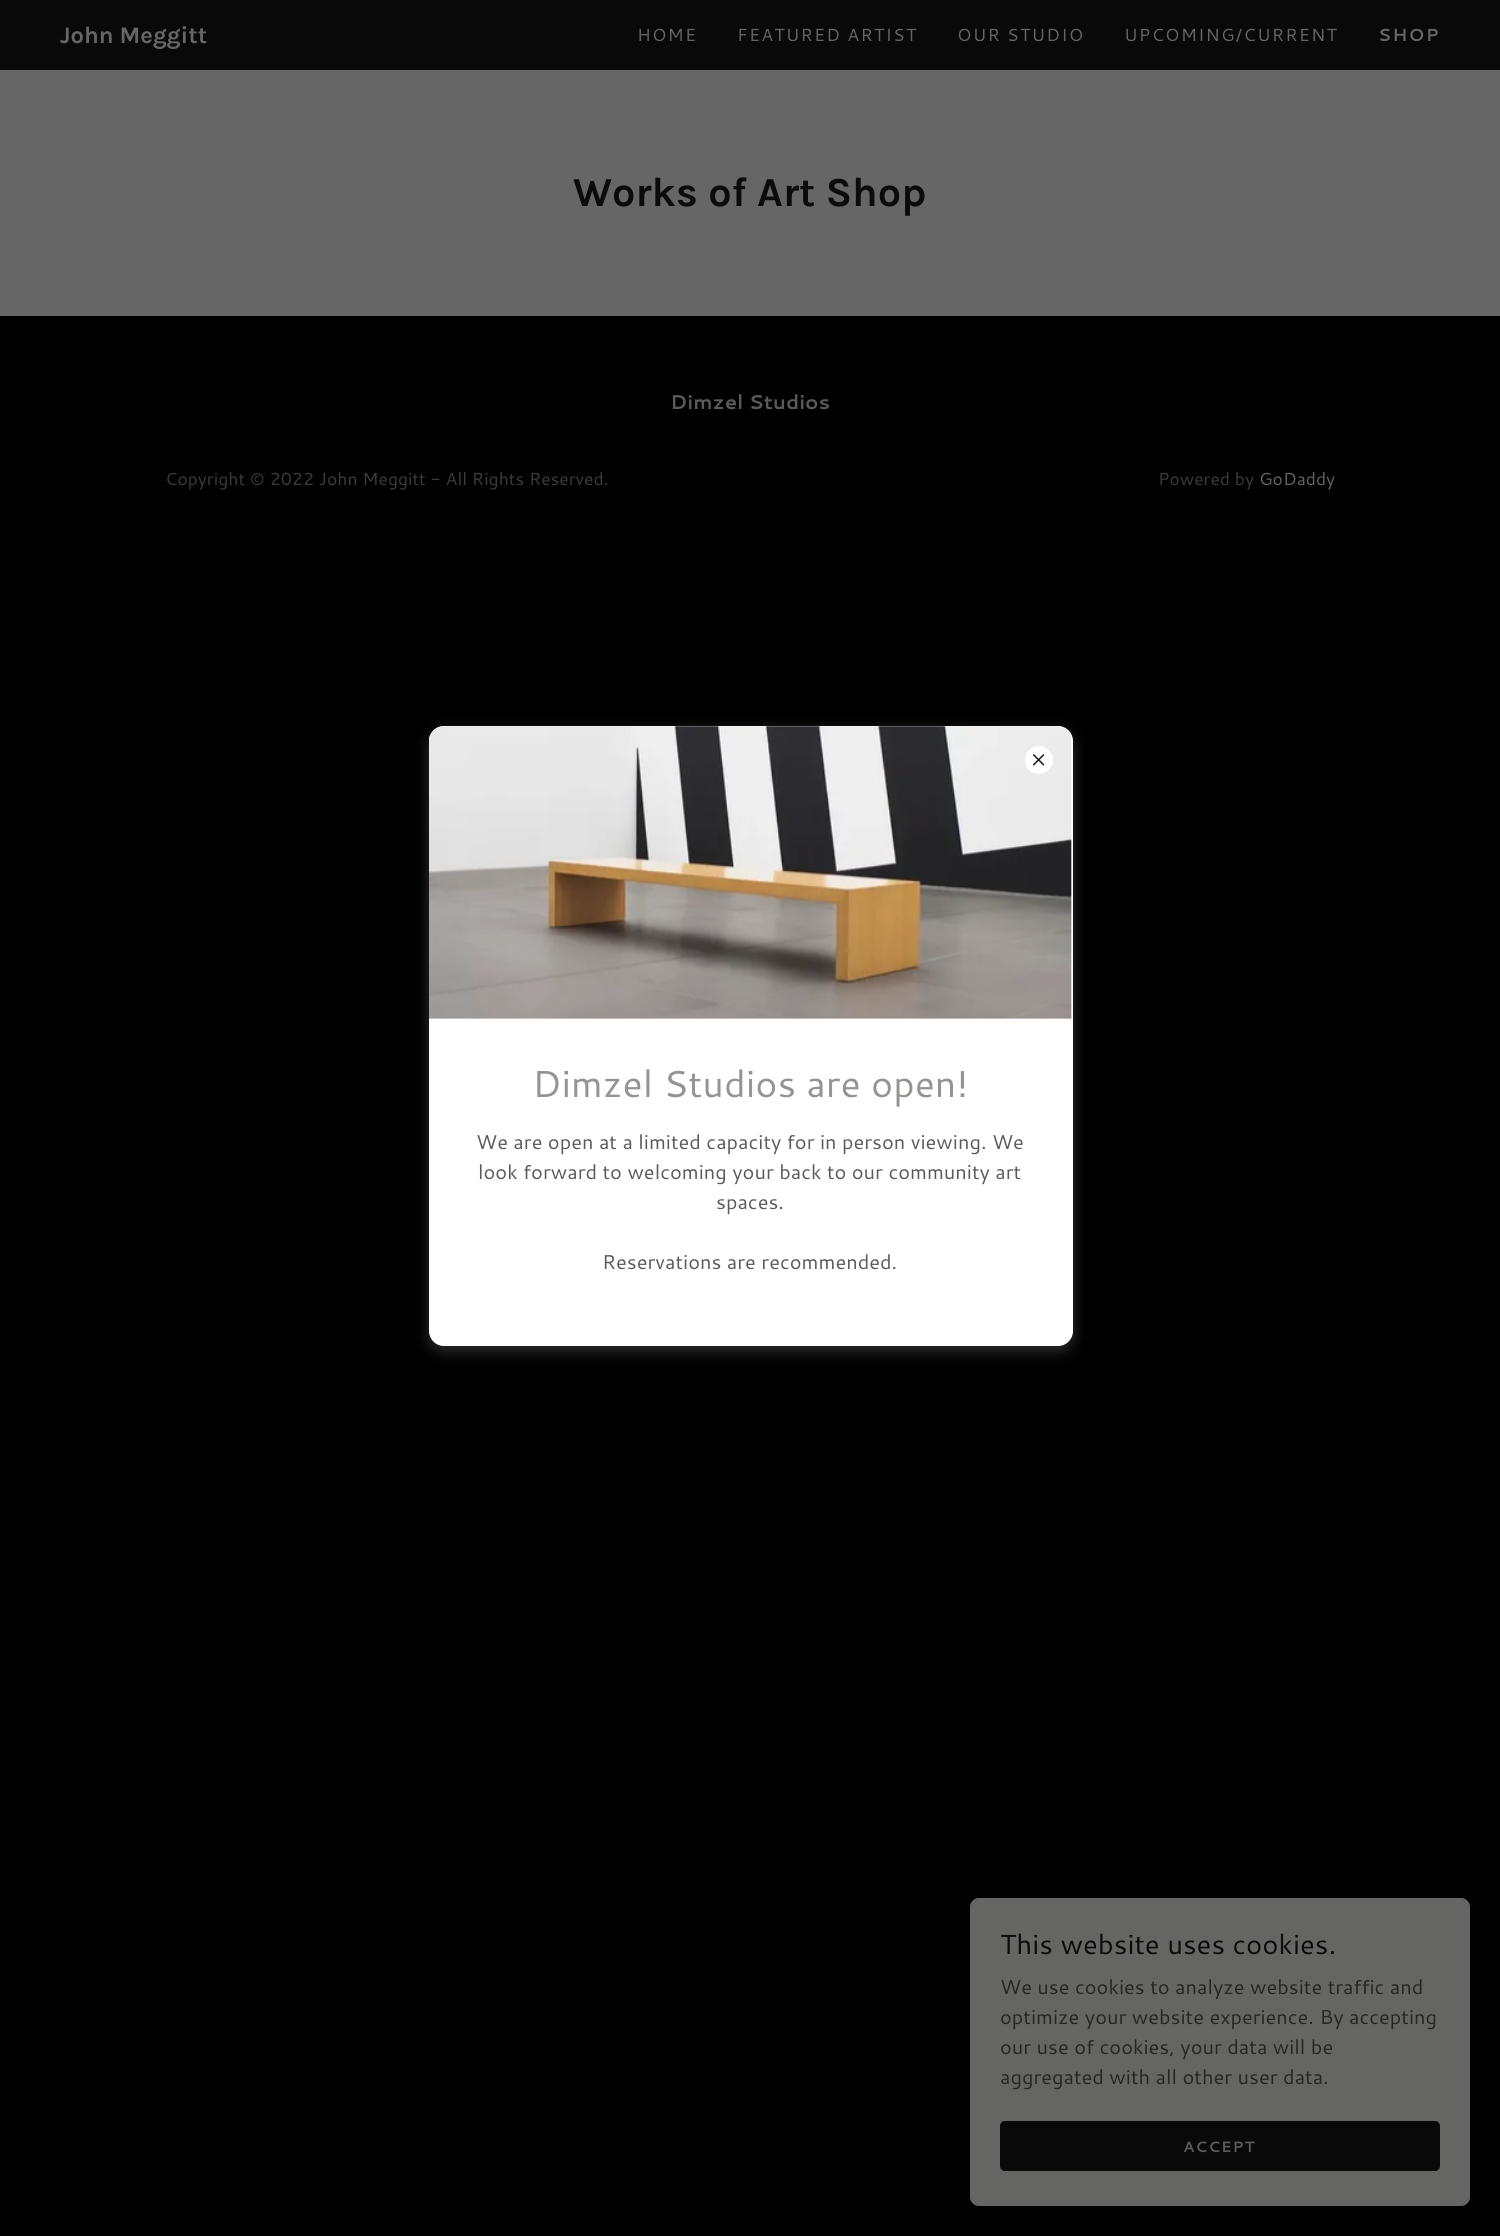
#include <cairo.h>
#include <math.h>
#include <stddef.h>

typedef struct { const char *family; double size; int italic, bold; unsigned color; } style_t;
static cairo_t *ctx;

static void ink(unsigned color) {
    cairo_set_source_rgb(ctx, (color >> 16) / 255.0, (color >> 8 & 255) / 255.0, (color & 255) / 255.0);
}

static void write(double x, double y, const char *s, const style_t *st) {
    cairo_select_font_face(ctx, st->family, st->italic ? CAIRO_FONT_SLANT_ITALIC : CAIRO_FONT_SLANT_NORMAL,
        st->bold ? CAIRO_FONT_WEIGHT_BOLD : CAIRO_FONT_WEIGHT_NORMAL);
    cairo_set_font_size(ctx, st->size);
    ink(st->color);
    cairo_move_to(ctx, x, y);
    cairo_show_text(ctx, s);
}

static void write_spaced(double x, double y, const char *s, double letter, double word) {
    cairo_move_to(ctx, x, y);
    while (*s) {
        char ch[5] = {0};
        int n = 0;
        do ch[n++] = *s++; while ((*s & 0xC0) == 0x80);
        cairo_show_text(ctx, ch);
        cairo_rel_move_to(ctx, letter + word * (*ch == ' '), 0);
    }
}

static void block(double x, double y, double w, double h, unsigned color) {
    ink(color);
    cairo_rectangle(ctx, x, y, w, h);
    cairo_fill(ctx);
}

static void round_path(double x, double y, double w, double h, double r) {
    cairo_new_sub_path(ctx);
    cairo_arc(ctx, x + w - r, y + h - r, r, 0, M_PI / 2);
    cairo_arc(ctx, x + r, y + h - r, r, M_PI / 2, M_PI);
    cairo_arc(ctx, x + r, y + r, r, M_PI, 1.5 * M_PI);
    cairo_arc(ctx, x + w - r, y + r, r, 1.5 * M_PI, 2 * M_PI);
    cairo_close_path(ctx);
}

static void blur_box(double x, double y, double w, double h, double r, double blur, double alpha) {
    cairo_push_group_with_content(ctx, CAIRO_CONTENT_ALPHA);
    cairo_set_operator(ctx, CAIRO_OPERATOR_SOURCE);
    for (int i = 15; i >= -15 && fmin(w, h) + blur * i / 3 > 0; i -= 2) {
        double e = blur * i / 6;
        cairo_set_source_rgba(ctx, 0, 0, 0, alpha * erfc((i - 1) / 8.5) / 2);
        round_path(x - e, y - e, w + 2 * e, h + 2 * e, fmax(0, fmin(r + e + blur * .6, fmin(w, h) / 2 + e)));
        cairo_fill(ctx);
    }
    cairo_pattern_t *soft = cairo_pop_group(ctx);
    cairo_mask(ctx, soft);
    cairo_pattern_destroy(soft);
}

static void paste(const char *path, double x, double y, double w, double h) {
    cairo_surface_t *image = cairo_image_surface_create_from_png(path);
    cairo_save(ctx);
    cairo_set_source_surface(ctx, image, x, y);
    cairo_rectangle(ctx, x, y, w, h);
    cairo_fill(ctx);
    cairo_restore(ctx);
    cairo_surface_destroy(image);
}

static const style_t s1 = {"Karla", 23.75, 0, 1, 0x656564};
static const style_t s2 = {"Karla", 41.25, 0, 1, 0x0b0b0b};
static const style_t s3 = {"Cantarell", 20, 0, 1, 0x5a5a5a};
static const style_t s4 = {"Cantarell", 17.5, 0, 0, 0x3c3c3c};
static const style_t s5 = {"Cantarell", 17.5, 0, 0, 0x656564};
static const style_t s6 = {"Cantarell", 37.5, 0, 0, 0x949492};
static const style_t s7 = {"Cantarell", 20, 0, 0, 0x5a5a5a};
static const style_t s8 = {"Cantarell", 27.5, 0, 0, 0x0b0b0b};
static const style_t s9 = {"Cantarell", 20, 0, 0, 0x252524};

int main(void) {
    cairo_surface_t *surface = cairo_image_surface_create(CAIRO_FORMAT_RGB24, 1500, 2236);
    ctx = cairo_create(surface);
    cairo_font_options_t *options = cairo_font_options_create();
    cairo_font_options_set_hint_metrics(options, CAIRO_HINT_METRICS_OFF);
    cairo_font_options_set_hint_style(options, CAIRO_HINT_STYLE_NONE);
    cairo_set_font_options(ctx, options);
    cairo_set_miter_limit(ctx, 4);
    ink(0x000000);
    cairo_paint(ctx);
    block(0, 0, 1500, 70, 0x090909);
    write(60, 43, "John Meggitt", &s1);
    cairo_select_font_face(ctx, "Cantarell", CAIRO_FONT_SLANT_NORMAL, CAIRO_FONT_WEIGHT_NORMAL);
    cairo_set_font_size(ctx, 17.5);
    write_spaced(637, 41, "HOME", 1.25, 0);
    write_spaced(737, 41, "FEATURED ARTIST", 1.25, 0);
    write_spaced(957, 41, "OUR STUDIO", 1.25, 0);
    write_spaced(1124, 41, "UPCOMING/CURRENT", 1.25, 0);
    cairo_select_font_face(ctx, "Cantarell", CAIRO_FONT_SLANT_NORMAL, CAIRO_FONT_WEIGHT_BOLD);
    write_spaced(1378, 41, "SHOP", 1.25, 0);
    block(0, 70, 1500, 246, 0x666666);
    write(573, 206, "Works of Art Shop", &s2);
    write(670, 409, "Dimzel Studios", &s3);
    write(165, 485, "Copyright © 2022 John Meggitt - All Rights Reserved.", &s4);
    write(1158, 485, "Powered by", &s4);
    write(1259, 485, "GoDaddy", &s5);
    ink(0x757575);
    blur_box(429, 731, 644, 620, 15, 7.5, 0.4);
    ink(0xffffff);
    round_path(429, 726, 644, 620, 15);
    cairo_fill(ctx);
    paste("pic2.png", 429, 726, 643, 293);
    cairo_arc(ctx, 1039, 760, 14, 0, 2 * M_PI);
    cairo_fill(ctx);
    paste("pic1.png", 1033, 754, 12, 12);
    write(532, 1097, "Dimzel Studios are open!", &s6);
    write(476, 1149, "We are open at a limited capacity for in person viewing. We", &s7);
    write(478, 1179, "look forward to welcoming your back to our community art", &s7);
    write(716, 1209, "spaces.", &s7);
    write(602, 1269, "Reservations are recommended.", &s7);
    ink(0x656564);
    round_path(970, 1898, 500, 308, 9);
    cairo_fill(ctx);
    write(1000, 1954, "This website uses cookies.", &s8);
    write(1000, 1994, "We use cookies to analyze website traffic and", &s9);
    write(1000, 2024, "optimize your website experience. By accepting", &s9);
    write(1000, 2054, "our use of cookies, your data will be", &s9);
    write(1000, 2084, "aggregated with all other user data.", &s9);
    ink(0x090909);
    round_path(1000, 2121, 440, 50, 5);
    cairo_fill(ctx);
    cairo_select_font_face(ctx, "Cantarell", CAIRO_FONT_SLANT_NORMAL, CAIRO_FONT_WEIGHT_BOLD);
    cairo_set_font_size(ctx, 15);
    ink(0x5a5a5a);
    write_spaced(1183, 2152, "ACCEPT", 1, 0);
    cairo_surface_write_to_png(surface, "screenshot.png");
    cairo_font_options_destroy(options);
    cairo_destroy(ctx);
    cairo_surface_destroy(surface);
    return 0;
}
